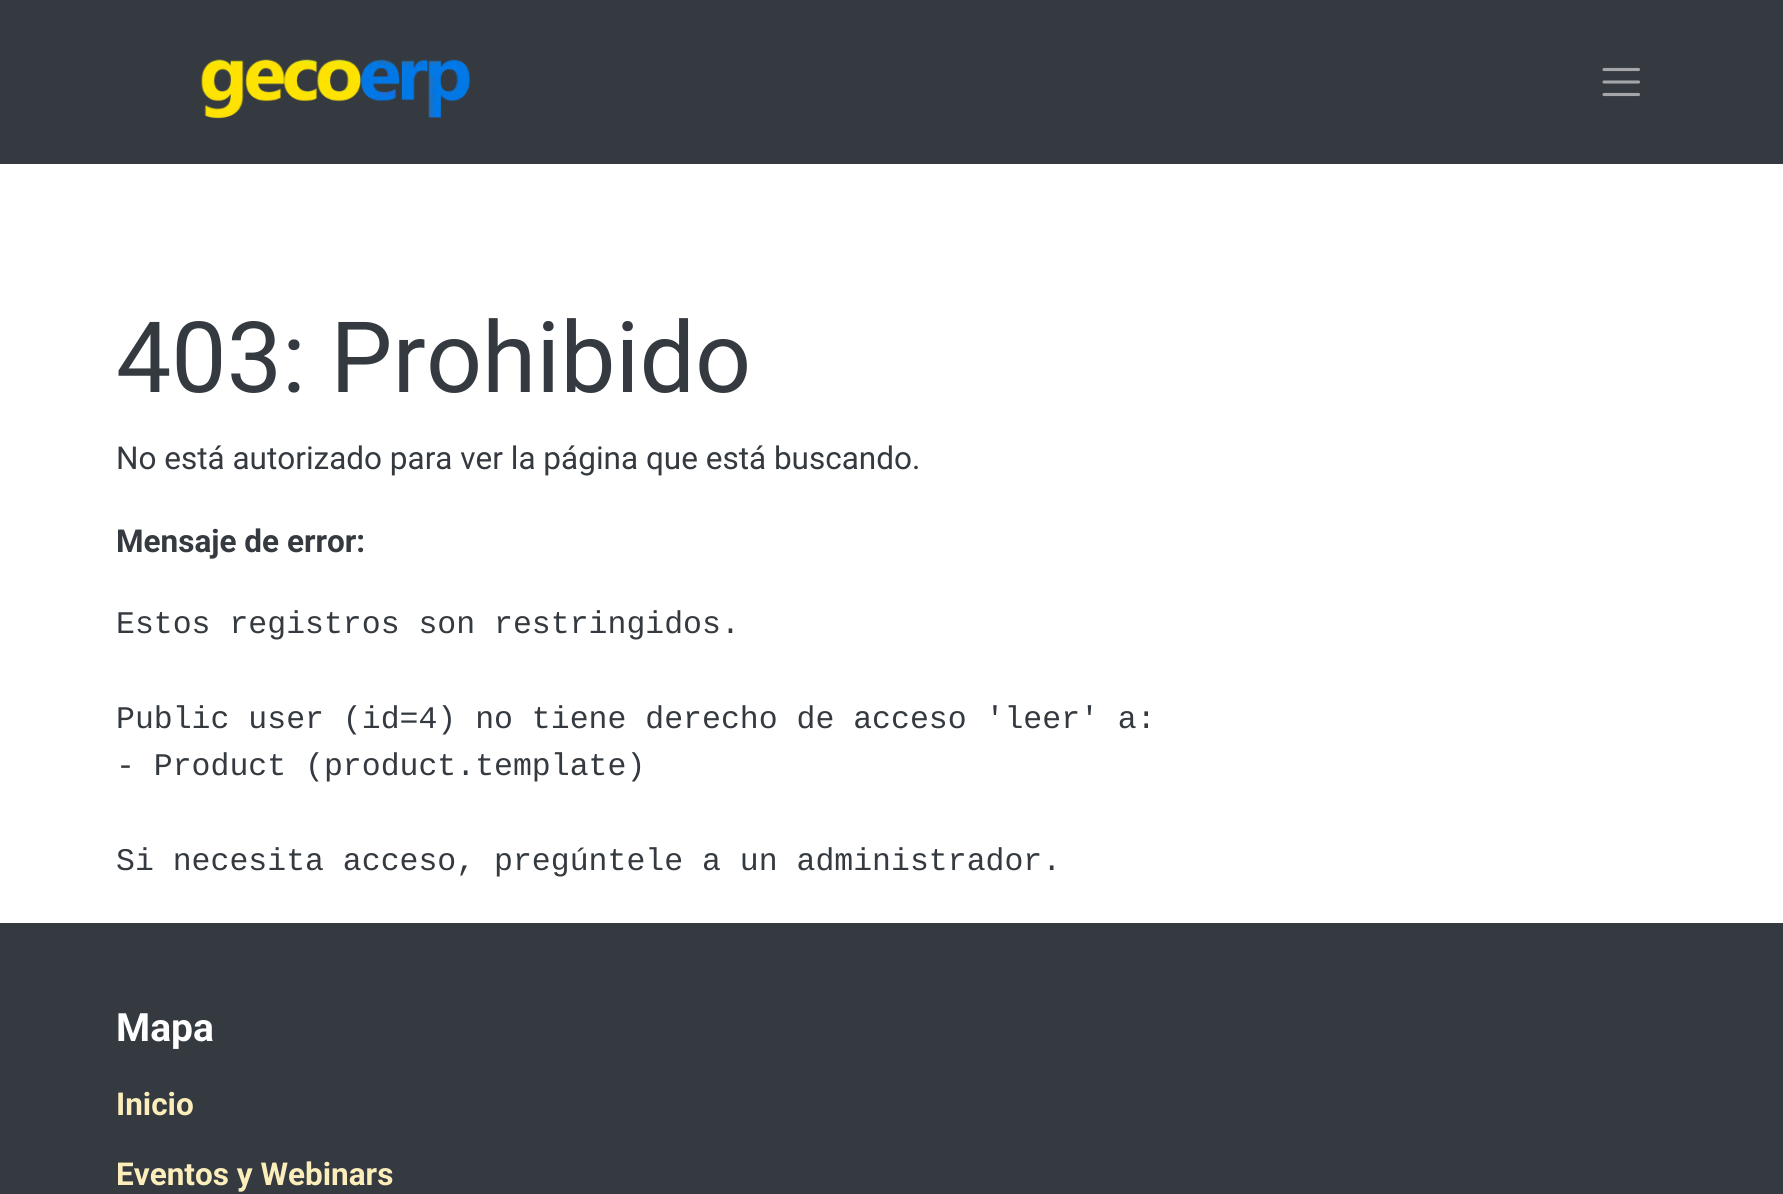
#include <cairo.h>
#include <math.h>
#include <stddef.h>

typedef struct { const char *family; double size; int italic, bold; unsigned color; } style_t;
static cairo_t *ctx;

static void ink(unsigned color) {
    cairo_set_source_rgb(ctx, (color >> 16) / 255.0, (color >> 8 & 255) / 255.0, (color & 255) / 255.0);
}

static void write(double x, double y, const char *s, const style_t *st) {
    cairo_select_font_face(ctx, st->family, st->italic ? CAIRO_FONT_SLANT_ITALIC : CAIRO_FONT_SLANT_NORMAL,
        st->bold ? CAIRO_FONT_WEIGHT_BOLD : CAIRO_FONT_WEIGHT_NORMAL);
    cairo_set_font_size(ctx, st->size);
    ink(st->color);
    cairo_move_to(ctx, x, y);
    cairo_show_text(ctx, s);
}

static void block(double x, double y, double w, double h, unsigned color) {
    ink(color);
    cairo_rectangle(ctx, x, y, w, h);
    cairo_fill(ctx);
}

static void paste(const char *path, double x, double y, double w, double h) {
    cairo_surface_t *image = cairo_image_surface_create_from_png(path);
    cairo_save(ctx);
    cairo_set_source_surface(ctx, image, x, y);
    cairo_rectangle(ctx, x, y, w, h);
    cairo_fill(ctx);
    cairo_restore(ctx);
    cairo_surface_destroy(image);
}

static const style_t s1 = {"Roboto", 98.5, 0, 0, 0x343a40};
static const style_t s2 = {"Roboto", 31.5, 0, 0, 0x343a40};
static const style_t s3 = {"Roboto", 31.5, 0, 1, 0x343a40};
static const style_t s4 = {"Liberation Mono", 31.5, 0, 0, 0x343a40};
static const style_t s5 = {"Roboto", 39, 0, 1, 0xffffff};
static const style_t s6 = {"Roboto", 31.5, 0, 1, 0xfceebb};

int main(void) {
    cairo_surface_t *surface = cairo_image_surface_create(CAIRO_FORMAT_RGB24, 1783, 1194);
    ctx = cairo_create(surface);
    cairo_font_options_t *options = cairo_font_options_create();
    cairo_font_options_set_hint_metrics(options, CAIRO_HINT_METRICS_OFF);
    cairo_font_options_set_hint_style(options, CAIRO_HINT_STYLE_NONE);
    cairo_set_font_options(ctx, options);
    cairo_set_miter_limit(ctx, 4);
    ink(0xffffff);
    cairo_paint(ctx);
    block(0, 0, 1783, 164, 0x343a40);
    paste("pic1.png", 201, 59, 270, 60);
    cairo_new_path(ctx);
    cairo_move_to(ctx, 1604, 69.5);
    cairo_line_to(ctx, 1638.5, 69.5);
    cairo_move_to(ctx, 1604, 82);
    cairo_line_to(ctx, 1638.5, 82);
    cairo_move_to(ctx, 1604, 94.5);
    cairo_line_to(ctx, 1638.5, 94.5);
    ink(0xa4a6a9);
    cairo_set_line_width(ctx, 3.1);
    cairo_set_line_cap(ctx, CAIRO_LINE_CAP_ROUND);
    cairo_stroke(ctx);
    write(116, 392, "403: Prohibido", &s1);
    write(116, 469, "No está autorizado para ver la página que está buscando.", &s2);
    write(116, 552, "Mensaje de error:", &s3);
    write(116, 633, "Estos registros son restringidos.", &s4);
    write(116, 728, "Public user (id=4) no tiene derecho de acceso 'leer' a:", &s4);
    write(116, 775, "- Product (product.template)", &s4);
    write(116, 870, "Si necesita acceso, pregúntele a un administrador.", &s4);
    block(0, 923, 1783, 271, 0x343a40);
    write(116, 1041, "Mapa", &s5);
    write(116, 1115, "Inicio", &s6);
    write(116, 1185, "Eventos y Webinars", &s6);
    cairo_surface_write_to_png(surface, "screenshot.png");
    cairo_font_options_destroy(options);
    cairo_destroy(ctx);
    cairo_surface_destroy(surface);
    return 0;
}
